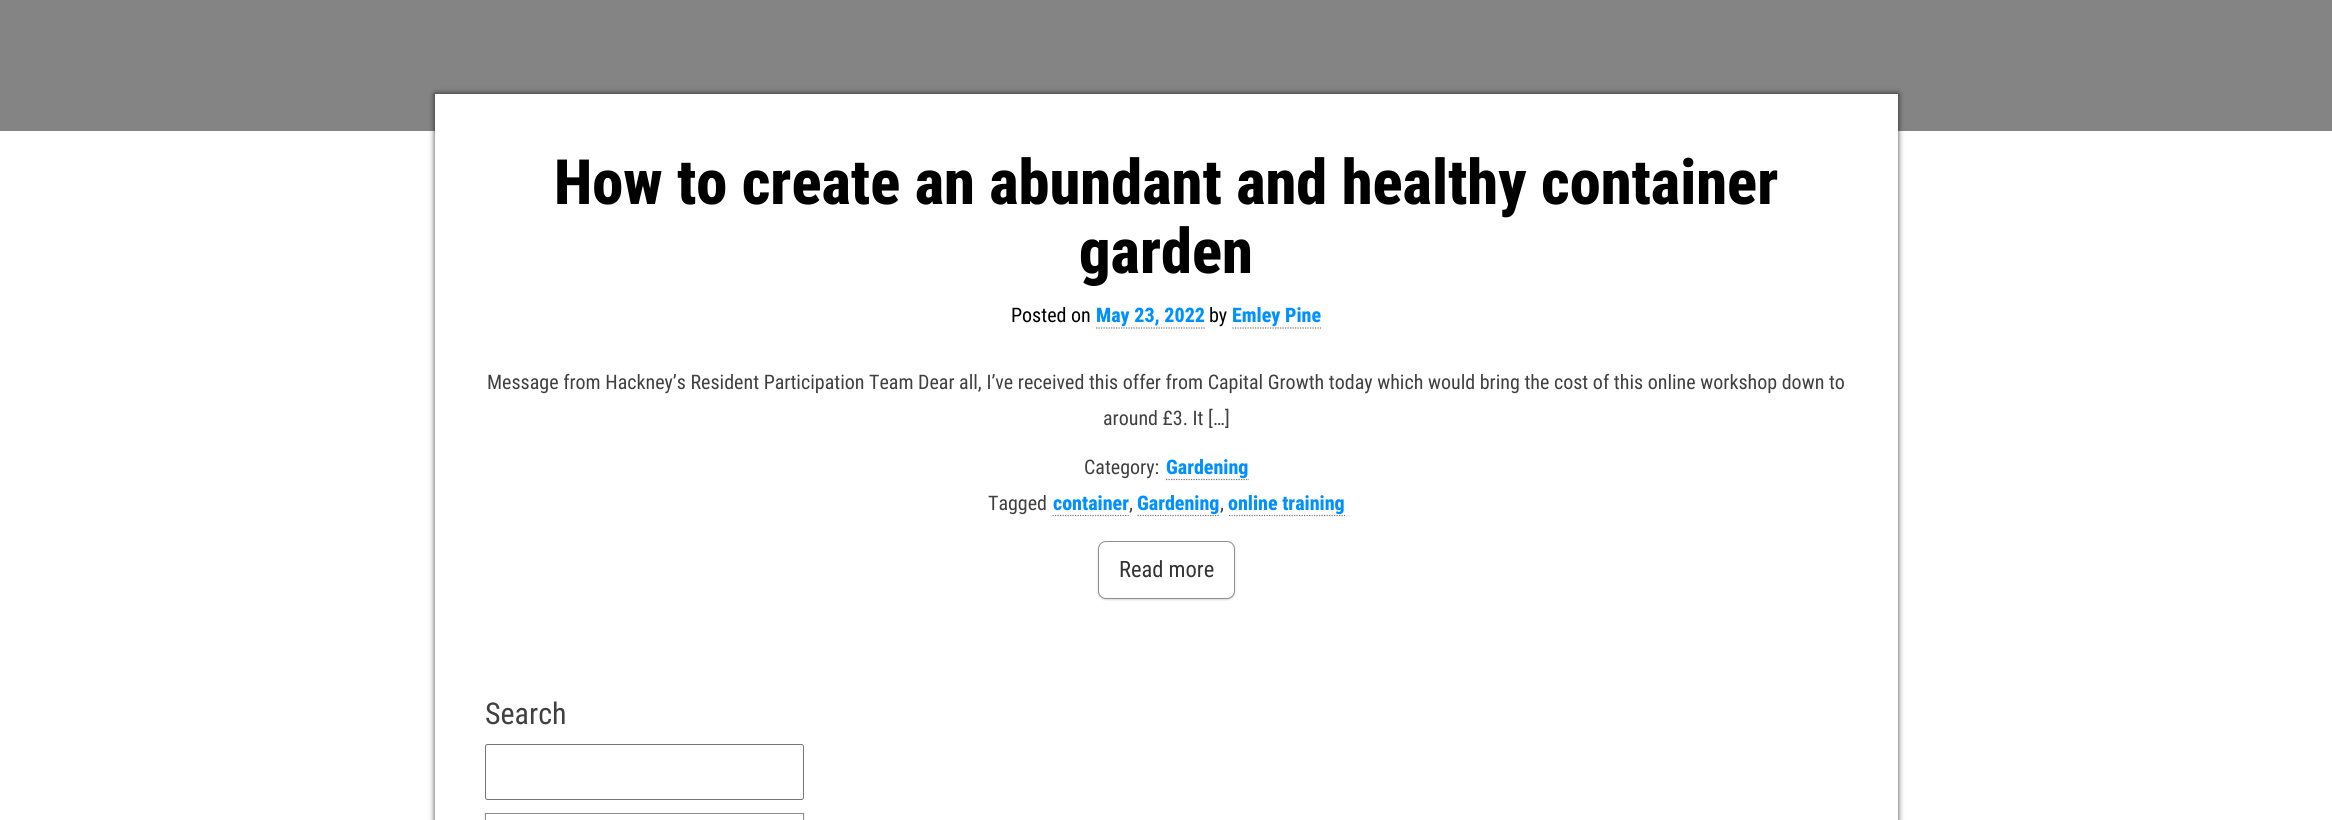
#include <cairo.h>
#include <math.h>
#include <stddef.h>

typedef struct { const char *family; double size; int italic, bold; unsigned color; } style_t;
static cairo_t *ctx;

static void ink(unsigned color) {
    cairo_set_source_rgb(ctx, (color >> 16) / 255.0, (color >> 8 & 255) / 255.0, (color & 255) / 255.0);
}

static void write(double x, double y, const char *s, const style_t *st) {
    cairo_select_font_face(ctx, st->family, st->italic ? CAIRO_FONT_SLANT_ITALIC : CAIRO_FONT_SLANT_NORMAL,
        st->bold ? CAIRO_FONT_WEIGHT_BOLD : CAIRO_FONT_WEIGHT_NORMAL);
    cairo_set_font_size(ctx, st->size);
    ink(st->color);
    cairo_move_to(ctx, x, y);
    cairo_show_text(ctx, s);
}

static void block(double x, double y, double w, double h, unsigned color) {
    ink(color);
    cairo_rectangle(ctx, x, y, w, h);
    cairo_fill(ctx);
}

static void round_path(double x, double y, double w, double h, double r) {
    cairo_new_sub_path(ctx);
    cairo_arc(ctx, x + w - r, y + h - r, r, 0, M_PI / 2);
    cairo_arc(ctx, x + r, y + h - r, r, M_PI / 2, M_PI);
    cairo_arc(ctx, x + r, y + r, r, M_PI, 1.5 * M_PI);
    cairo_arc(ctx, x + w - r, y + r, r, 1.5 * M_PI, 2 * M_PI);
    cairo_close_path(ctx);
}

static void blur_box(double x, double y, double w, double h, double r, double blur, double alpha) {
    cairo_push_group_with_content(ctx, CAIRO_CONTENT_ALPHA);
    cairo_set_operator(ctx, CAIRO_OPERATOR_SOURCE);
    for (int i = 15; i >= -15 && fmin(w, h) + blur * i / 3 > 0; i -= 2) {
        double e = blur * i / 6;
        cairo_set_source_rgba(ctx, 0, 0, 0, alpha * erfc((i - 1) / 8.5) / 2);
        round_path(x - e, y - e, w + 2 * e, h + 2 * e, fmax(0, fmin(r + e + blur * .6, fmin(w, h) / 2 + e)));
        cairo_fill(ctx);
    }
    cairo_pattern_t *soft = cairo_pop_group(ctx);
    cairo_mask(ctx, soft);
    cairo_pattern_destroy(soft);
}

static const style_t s1 = {"Roboto Condensed ExtraBold", 62.5, 0, 0, 0x000000};
static const style_t s2 = {"Roboto Condensed", 20, 0, 0, 0x000000};
static const style_t s3 = {"Roboto Condensed ExtraBold", 20, 0, 0, 0x0090ff};
static const style_t s4 = {"Roboto Condensed", 20, 0, 0, 0x404040};
static const style_t s5 = {"Roboto Condensed", 22.5, 0, 0, 0x333333};
static const style_t s6 = {"Roboto Condensed", 30, 0, 0, 0x404040};

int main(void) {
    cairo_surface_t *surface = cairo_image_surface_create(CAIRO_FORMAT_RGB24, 2332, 820);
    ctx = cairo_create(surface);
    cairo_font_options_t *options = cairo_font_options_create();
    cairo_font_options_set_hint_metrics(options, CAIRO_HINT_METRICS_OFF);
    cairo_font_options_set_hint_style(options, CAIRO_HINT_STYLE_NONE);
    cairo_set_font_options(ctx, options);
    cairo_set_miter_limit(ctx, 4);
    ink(0xffffff);
    cairo_paint(ctx);
    block(0, 0, 2332, 131, 0x848484);
    ink(0x000000);
    blur_box(435, 94, 1463, 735, 0, 3, 0.75);
    block(435, 94, 1463, 726, 0xffffff);
    write(554, 204, "How to create an abundant and healthy container", &s1);
    write(1079, 273, "garden", &s1);
    write(1011, 322, "Posted on", &s2);
    write(1096, 322, "May 23, 2022", &s3);
    cairo_new_path(ctx);
    cairo_move_to(ctx, 1096, 328);
    cairo_line_to(ctx, 1205, 328);
    ink(0x777777);
    cairo_set_line_width(ctx, 1.2);
    cairo_set_dash(ctx, (double[]){1.25, 1.25}, 2, 0);
    cairo_stroke(ctx);
    write(1209, 322, "by", &s2);
    write(1232, 322, "Emley Pine", &s3);
    cairo_new_path(ctx);
    cairo_move_to(ctx, 1232.5, 328);
    cairo_line_to(ctx, 1321, 328);
    ink(0x777777);
    cairo_stroke(ctx);
    write(487, 389, "Message from Hackney’s Resident Participation Team Dear all, I’ve received this offer from Capital Growth today which would bring the cost of this online workshop down to", &s4);
    write(1103, 425, "around £3. It […]", &s4);
    write(1084, 474, "Category:", &s4);
    cairo_new_path(ctx);
    cairo_move_to(ctx, 1166, 479.5);
    cairo_line_to(ctx, 1249, 479.5);
    ink(0x777777);
    cairo_stroke(ctx);
    write(1166, 474, "Gardening", &s3);
    write(988, 510, "Tagged", &s4);
    write(1053, 510, "container", &s3);
    cairo_new_path(ctx);
    cairo_move_to(ctx, 1052.5, 515.5);
    cairo_line_to(ctx, 1129, 515.5);
    ink(0x777777);
    cairo_stroke(ctx);
    write(1129, 510, ",", &s4);
    cairo_new_path(ctx);
    cairo_move_to(ctx, 1137.5, 515.5);
    cairo_line_to(ctx, 1220, 515.5);
    ink(0x777777);
    cairo_stroke(ctx);
    write(1137, 510, "Gardening", &s3);
    write(1220, 510, ",", &s4);
    cairo_new_path(ctx);
    cairo_move_to(ctx, 1229, 515.5);
    cairo_line_to(ctx, 1345, 515.5);
    ink(0x777777);
    cairo_stroke(ctx);
    write(1228, 510, "online training", &s3);
    ink(0x000000);
    blur_box(1098, 543, 137, 57, 8, 1, 0.15);
    ink(0xffffff);
    round_path(1098.5, 541.5, 136, 57, 7.5);
    cairo_fill_preserve(ctx);
    ink(0x8e8e8e);
    cairo_set_line_width(ctx, 1);
    cairo_set_dash(ctx, NULL, 0, 0);
    cairo_stroke(ctx);
    write(1119, 577, "Read more", &s5);
    write(485, 724, "Search", &s6);
    round_path(485.5, 744.5, 318, 55, 2);
    ink(0x767676);
    cairo_stroke(ctx);
    ink(0x000000);
    blur_box(485, 814, 319, 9, 0, 1, 0.15);
    ink(0xffffff);
    cairo_rectangle(ctx, 485.5, 813.5, 318, 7);
    cairo_fill_preserve(ctx);
    ink(0x8e8e8e);
    cairo_stroke(ctx);
    cairo_surface_write_to_png(surface, "screenshot.png");
    cairo_font_options_destroy(options);
    cairo_destroy(ctx);
    cairo_surface_destroy(surface);
    return 0;
}
